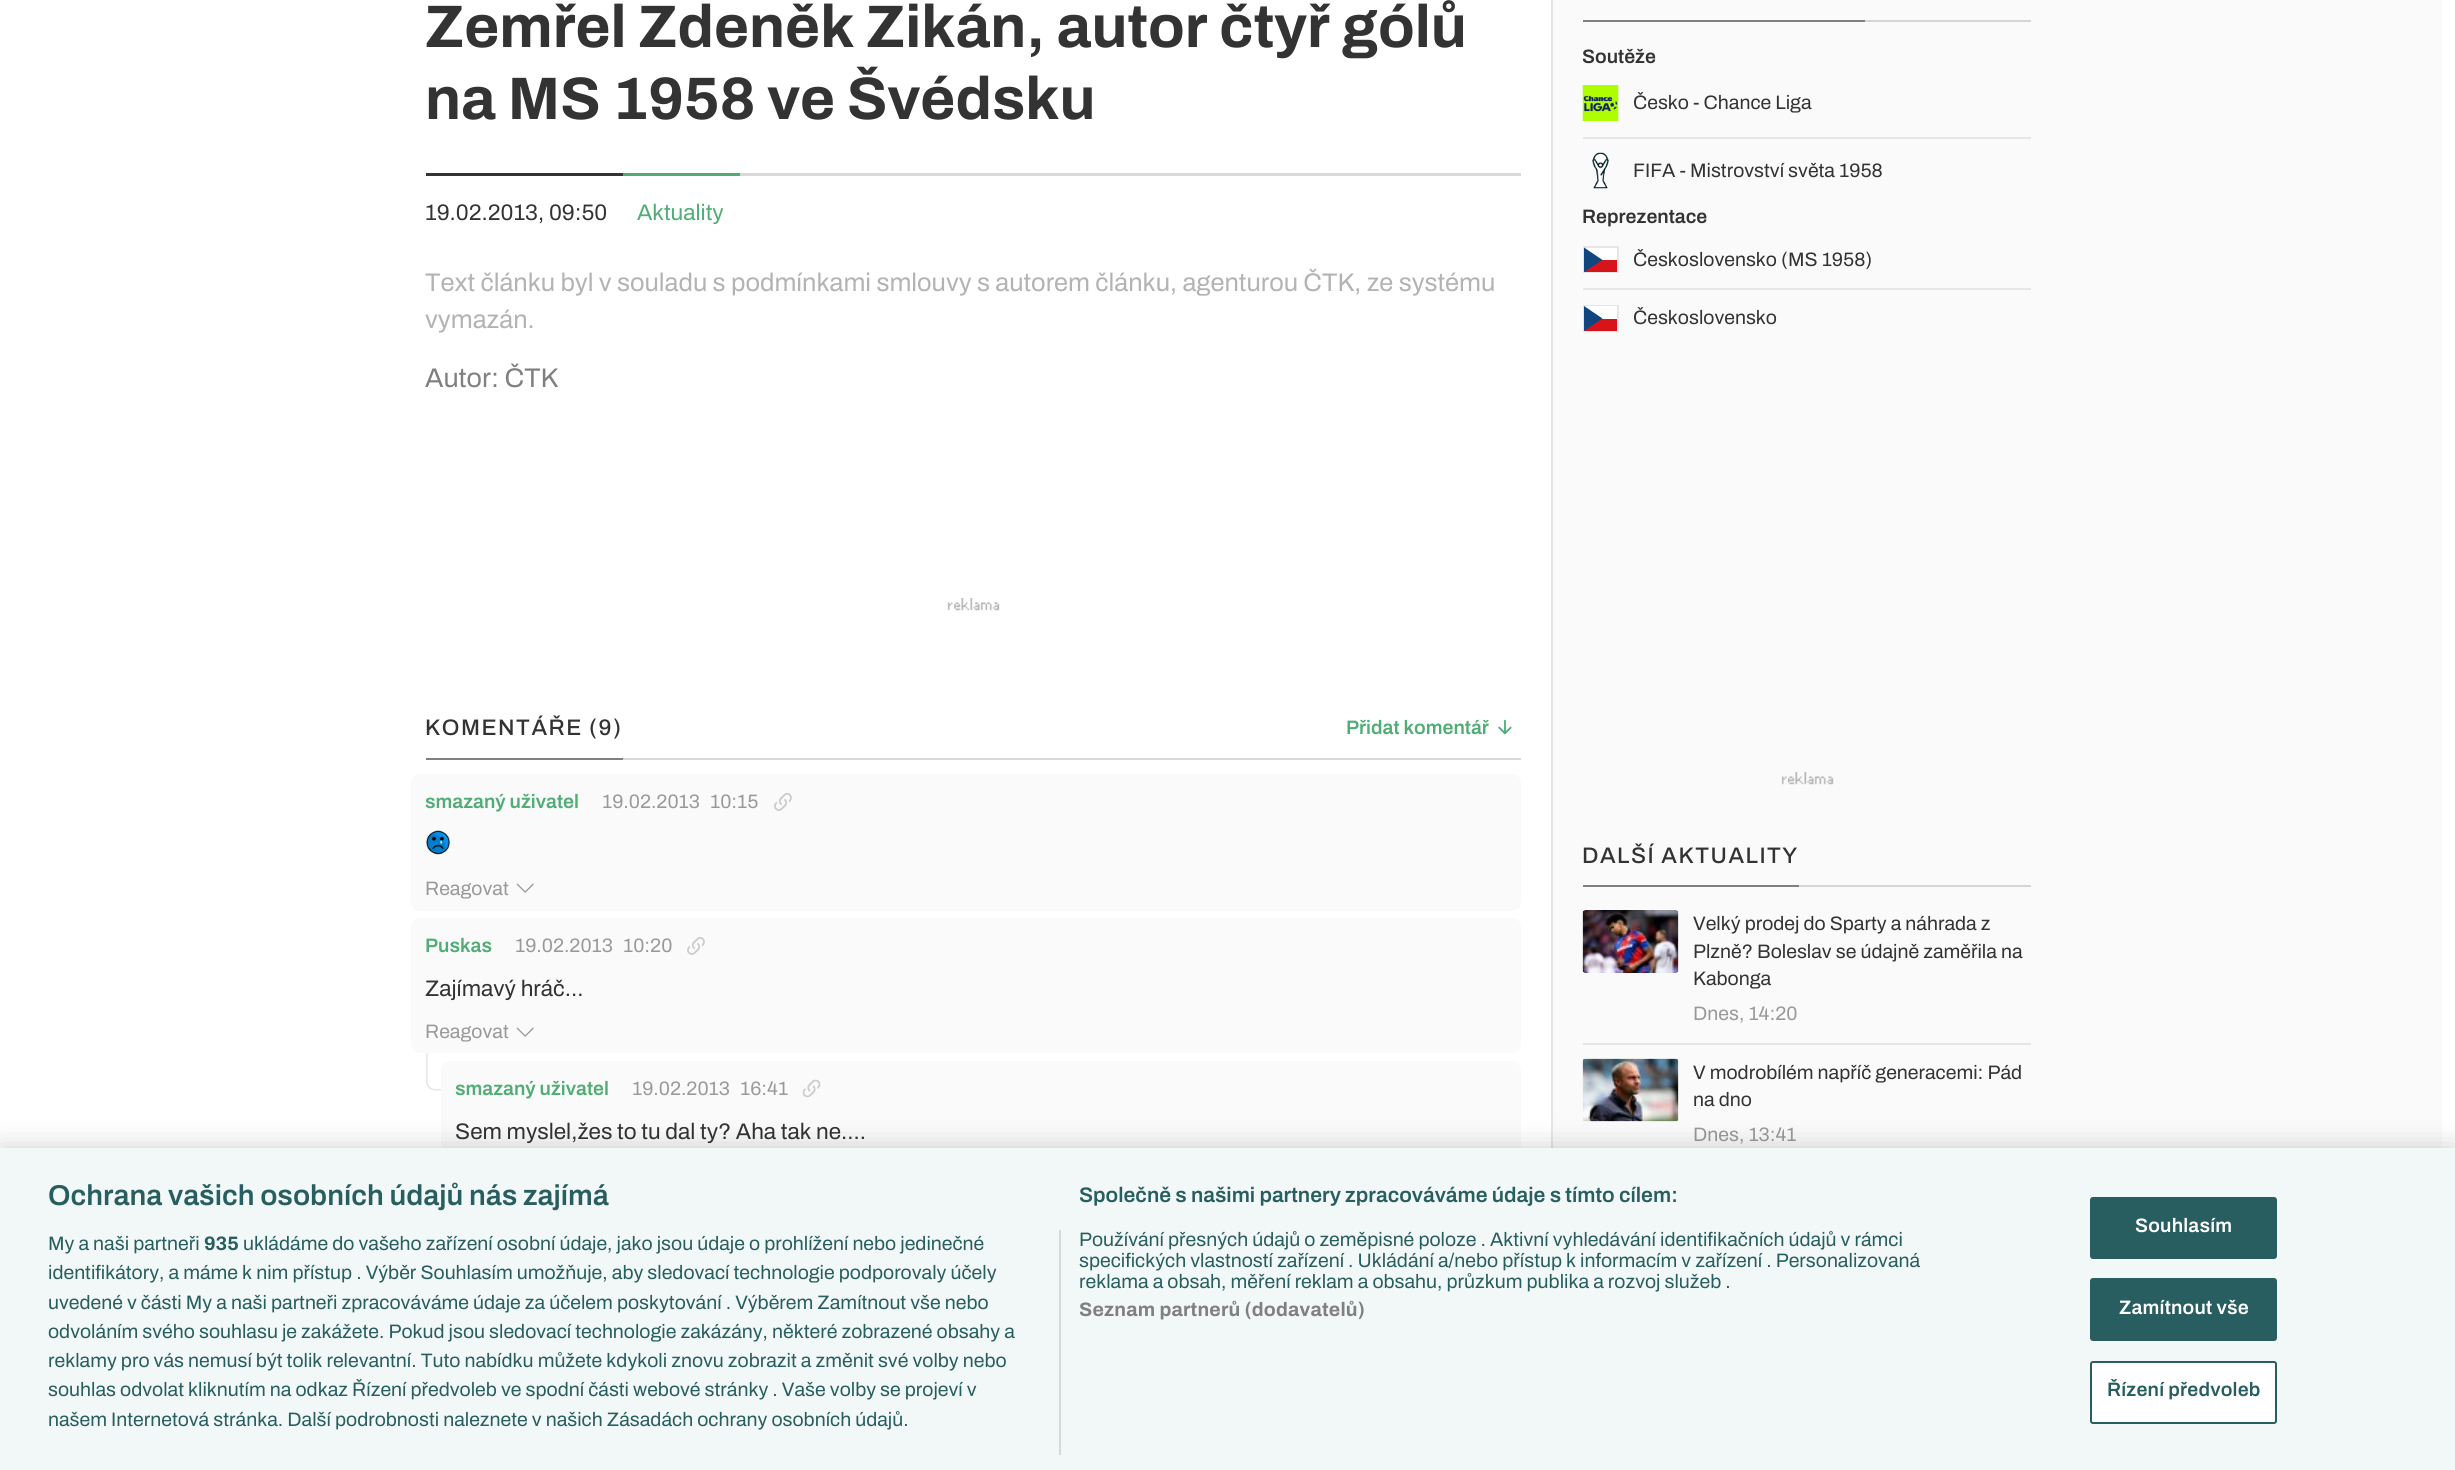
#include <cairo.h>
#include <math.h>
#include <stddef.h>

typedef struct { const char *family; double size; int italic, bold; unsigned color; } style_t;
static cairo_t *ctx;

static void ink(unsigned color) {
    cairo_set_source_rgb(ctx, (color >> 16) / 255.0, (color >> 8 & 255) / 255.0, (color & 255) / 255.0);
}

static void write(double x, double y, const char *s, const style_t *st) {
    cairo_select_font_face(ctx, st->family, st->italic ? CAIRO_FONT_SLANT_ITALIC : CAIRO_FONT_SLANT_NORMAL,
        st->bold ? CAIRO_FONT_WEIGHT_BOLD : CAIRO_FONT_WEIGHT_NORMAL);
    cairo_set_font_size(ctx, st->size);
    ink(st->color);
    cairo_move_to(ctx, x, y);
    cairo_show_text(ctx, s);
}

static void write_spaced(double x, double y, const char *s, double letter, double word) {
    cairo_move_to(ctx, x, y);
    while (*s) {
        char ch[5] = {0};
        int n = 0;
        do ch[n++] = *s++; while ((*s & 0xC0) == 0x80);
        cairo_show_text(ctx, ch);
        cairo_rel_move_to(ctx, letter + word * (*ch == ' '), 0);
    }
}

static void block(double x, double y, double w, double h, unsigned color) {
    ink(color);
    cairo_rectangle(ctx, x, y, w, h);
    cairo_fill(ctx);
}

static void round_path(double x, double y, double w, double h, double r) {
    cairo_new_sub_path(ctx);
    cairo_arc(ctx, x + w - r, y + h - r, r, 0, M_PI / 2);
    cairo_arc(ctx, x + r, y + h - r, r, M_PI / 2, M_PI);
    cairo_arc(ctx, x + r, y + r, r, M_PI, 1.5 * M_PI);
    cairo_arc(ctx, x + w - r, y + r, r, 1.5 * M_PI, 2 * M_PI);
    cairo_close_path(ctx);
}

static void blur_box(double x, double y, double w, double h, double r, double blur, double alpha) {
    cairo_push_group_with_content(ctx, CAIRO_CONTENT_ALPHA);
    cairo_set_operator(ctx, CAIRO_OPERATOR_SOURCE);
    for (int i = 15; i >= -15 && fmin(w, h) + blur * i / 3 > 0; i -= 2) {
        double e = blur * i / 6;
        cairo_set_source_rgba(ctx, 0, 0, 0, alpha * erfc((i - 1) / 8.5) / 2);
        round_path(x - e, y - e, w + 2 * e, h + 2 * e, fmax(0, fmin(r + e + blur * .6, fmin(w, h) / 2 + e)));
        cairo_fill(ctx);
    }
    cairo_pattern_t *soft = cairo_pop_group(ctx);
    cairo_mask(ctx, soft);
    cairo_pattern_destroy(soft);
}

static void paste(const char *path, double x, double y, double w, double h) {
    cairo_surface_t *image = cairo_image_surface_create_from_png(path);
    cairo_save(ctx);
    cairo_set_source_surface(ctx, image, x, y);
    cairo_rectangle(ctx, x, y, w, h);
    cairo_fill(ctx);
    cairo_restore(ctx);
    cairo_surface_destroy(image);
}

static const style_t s1 = {"Archivo", 60, 0, 1, 0x333333};
static const style_t s2 = {"Archivo", 22.5, 0, 0, 0x333333};
static const style_t s3 = {"Archivo", 22.5, 0, 0, 0x4fad75};
static const style_t s4 = {"Archivo", 25.5, 0, 0, 0xb3b3b4};
static const style_t s5 = {"Archivo", 27, 0, 0, 0x808080};
static const style_t s6 = {"Archivo SemiBold", 19.5, 0, 0, 0x4fad75};
static const style_t s7 = {"Archivo", 19.5, 0, 0, 0x9a9999};
static const style_t s8 = {"Archivo SemiBold", 19.5, 0, 0, 0x333333};
static const style_t s9 = {"Archivo", 19.5, 0, 0, 0x333333};
static const style_t s10 = {"Archivo SemiBold", 28.75, 0, 0, 0x285e5f};
static const style_t s11 = {"Archivo SemiBold", 21.1, 0, 0, 0x285e5f};
static const style_t s12 = {"Archivo", 19.5, 0, 0, 0x285e5f};
static const style_t s13 = {"Archivo", 19.5, 0, 1, 0x285e5f};

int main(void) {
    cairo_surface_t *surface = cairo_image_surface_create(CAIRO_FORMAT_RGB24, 2455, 1470);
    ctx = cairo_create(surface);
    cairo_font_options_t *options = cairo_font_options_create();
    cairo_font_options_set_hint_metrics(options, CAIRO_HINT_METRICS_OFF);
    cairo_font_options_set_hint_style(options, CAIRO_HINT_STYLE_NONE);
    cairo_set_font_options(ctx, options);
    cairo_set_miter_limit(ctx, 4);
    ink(0xffffff);
    cairo_paint(ctx);
    write(425, 47, "Zemřel Zdeněk Zikán, autor čtyř gólů", &s1);
    write(425, 119, "na MS 1958 ve Švédsku", &s1);
    block(740, 173, 781, 3, 0xd9d9d9);
    block(426, 173, 197, 3, 0x333333);
    write(425, 220, "19.02.2013, 09:50", &s2);
    block(623, 173, 117, 3, 0x4fad75);
    write(637, 220, "Aktuality", &s3);
    write(425, 291, "Text článku byl v souladu s podmínkami smlouvy s autorem článku, agenturou ČTK, ze systému", &s4);
    write(425, 328, "vymazán.", &s4);
    write(425, 387, "Autor: ČTK", &s5);
    paste("pic1.png", 947, 598, 53, 13);
    block(623, 758, 898, 2, 0xd9d9d9);
    block(426, 758, 197, 2, 0x808080);
    cairo_select_font_face(ctx, "Archivo Medium", CAIRO_FONT_SLANT_NORMAL, CAIRO_FONT_WEIGHT_NORMAL);
    cairo_set_font_size(ctx, 22.5);
    ink(0x333333);
    write_spaced(425, 735, "KOMENTÁŘE (9)", 1.5, 0);
    write(1346, 734, "Přidat komentář", &s6);
    paste("pic2.png", 1498, 719, 14, 16);
    ink(0xfafafa);
    round_path(411, 774, 1110, 137, 9);
    cairo_fill(ctx);
    write(425, 808, "smazaný uživatel", &s6);
    write(602, 808, "19.02.2013", &s7);
    write(710, 808, "10:15", &s7);
    paste("pic3.png", 774, 793, 18, 18);
    paste("pic4.png", 426, 830, 24, 25);
    write(425, 895, "Reagovat", &s7);
    paste("pic5.png", 516, 883, 18, 10);
    ink(0xfafafa);
    round_path(411, 918, 1110, 135, 9);
    cairo_fill(ctx);
    write(425, 952, "Puskas", &s6);
    write(515, 952, "19.02.2013", &s7);
    write(623, 952, "10:20", &s7);
    paste("pic6.png", 687, 937, 18, 18);
    write(425, 996, "Zajímavý hráč...", &s2);
    write(425, 1038, "Reagovat", &s7);
    paste("pic5.png", 516, 1027, 18, 10);
    ink(0xe6e6e6);
    cairo_set_fill_rule(ctx, CAIRO_FILL_RULE_EVEN_ODD);
    cairo_new_path(ctx);
    cairo_move_to(ctx, 426, 1053);
    cairo_line_to(ctx, 441, 1053);
    cairo_line_to(ctx, 441, 1090.5);
    cairo_line_to(ctx, 435, 1090.5);
    cairo_curve_to(ctx, 430, 1090.5, 426, 1086.5, 426, 1081.5);
    cairo_close_path(ctx);
    cairo_move_to(ctx, 427.5, 1053);
    cairo_line_to(ctx, 441, 1053);
    cairo_line_to(ctx, 441, 1089);
    cairo_line_to(ctx, 435, 1089);
    cairo_curve_to(ctx, 431, 1089, 427.5, 1085.5, 427.5, 1081.5);
    cairo_close_path(ctx);
    cairo_fill(ctx);
    ink(0xfafafa);
    round_path(441, 1061, 1080, 136, 9);
    cairo_fill(ctx);
    write(455, 1095, "smazaný uživatel", &s6);
    write(632, 1095, "19.02.2013", &s7);
    write(740, 1095, "16:41", &s7);
    paste("pic7.png", 802, 1079, 19, 19);
    write(455, 1139, "Sem myslel,žes to tu dal ty? Aha tak ne....", &s2);
    block(1551, 0, 2, 1148, 0xe6e6e6);
    block(1553, 0, 889, 1148, 0xfafafa);
    block(1865, 20, 166, 2, 0xd5d5d5);
    block(1583, 20, 282, 2, 0x808080);
    write(1582, 63, "Soutěže", &s8);
    paste("pic8.png", 1582, 85, 37, 36);
    write(1633, 109, "Česko - Chance Liga", &s9);
    block(1583, 137, 448, 2, 0xe6e6e6);
    paste("pic9.png", 1592, 152, 17, 37);
    write(1633, 177, "FIFA - Mistrovství světa 1958", &s9);
    write(1582, 223, "Reprezentace", &s8);
    cairo_rectangle(ctx, 1584, 247, 34, 25);
    ink(0xe6e6e6);
    cairo_stroke(ctx);
    block(1584, 248, 33, 12, 0xffffff);
    block(1584, 260, 33, 12, 0xd7141a);
    ink(0x11457e);
    cairo_set_fill_rule(ctx, CAIRO_FILL_RULE_WINDING);
    cairo_new_path(ctx);
    cairo_move_to(ctx, 1602.5, 260);
    cairo_line_to(ctx, 1584, 247.5);
    cairo_line_to(ctx, 1584, 272);
    cairo_close_path(ctx);
    cairo_fill(ctx);
    write(1633, 266, "Československo (MS 1958)", &s9);
    block(1583, 288, 448, 2, 0xe6e6e6);
    cairo_rectangle(ctx, 1584, 306, 34, 25);
    cairo_stroke(ctx);
    block(1584, 306, 33, 13, 0xffffff);
    block(1584, 319, 33, 12, 0xd7141a);
    ink(0x11457e);
    cairo_new_path(ctx);
    cairo_move_to(ctx, 1602.5, 318.5);
    cairo_line_to(ctx, 1584, 306);
    cairo_line_to(ctx, 1584, 331);
    cairo_close_path(ctx);
    cairo_fill(ctx);
    write(1633, 324, "Československo", &s9);
    paste("pic10.png", 1781, 772, 53, 13);
    block(1799, 885, 232, 2, 0xd5d5d5);
    block(1583, 885, 216, 2, 0x808080);
    cairo_select_font_face(ctx, "Archivo Medium", CAIRO_FONT_SLANT_NORMAL, CAIRO_FONT_WEIGHT_NORMAL);
    cairo_set_font_size(ctx, 22.5);
    ink(0x333333);
    write_spaced(1582, 863, "DALŠÍ AKTUALITY", 1.5, 0);
    paste("pic11.png", 1582, 910, 97, 63);
    write(1693, 930, "Velký prodej do Sparty a náhrada z", &s9);
    write(1693, 958, "Plzně? Boleslav se údajně zaměřila na", &s9);
    write(1693, 985, "Kabonga", &s9);
    write(1693, 1020, "Dnes, 14:20", &s7);
    block(1583, 1043, 448, 2, 0xe6e6e6);
    paste("pic12.png", 1582, 1058, 97, 64);
    write(1693, 1079, "V modrobílém napříč generacemi: Pád", &s9);
    write(1693, 1106, "na dno", &s9);
    write(1693, 1141, "Dnes, 13:41", &s7);
    ink(0x000000);
    blur_box(0, 1148, 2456, 322, 0, 13.5, 0.2);
    block(0, 1148, 2455, 322, 0xf2f8f7);
    write(48, 1205, "Ochrana vašich osobních údajů nás zajímá", &s10);
    write(1079, 1202, "Společně s našimi partnery zpracováváme údaje s tímto cílem:", &s11);
    write(1079, 1246, "Používání přesných údajů o zeměpisné poloze . Aktivní vyhledávání identifikačních údajů v rámci", &s12);
    write(1079, 1267, "specifických vlastností zařízení . Ukládání a/nebo přístup k informacím v zařízení . Personalizovaná", &s12);
    write(1079, 1288, "reklama a obsah, měření reklam a obsahu, průzkum publika a rozvoj služeb .", &s12);
    cairo_select_font_face(ctx, "Archivo", CAIRO_FONT_SLANT_NORMAL, CAIRO_FONT_WEIGHT_BOLD);
    ink(0x808080);
    write_spaced(1079, 1316, "Seznam partnerů (dodavatelů)", 0.2, 0);
    block(1059, 1230, 2, 225, 0xd8d8d8);
    write(48, 1250, "My a naši partneři", &s12);
    write(204, 1250, "935", &s13);
    write(243, 1250, "ukládáme do vašeho zařízení osobní údaje, jako jsou údaje o prohlížení nebo jedinečné", &s12);
    write(48, 1279, "identifikátory, a máme k nim přístup . Výběr Souhlasím umožňuje, aby sledovací technologie podporovaly účely", &s12);
    write(48, 1309, "uvedené v části My a naši partneři zpracováváme údaje za účelem poskytování . Výběrem Zamítnout vše nebo", &s12);
    write(48, 1338, "odvoláním svého souhlasu je zakážete. Pokud jsou sledovací technologie zakázány, některé zobrazené obsahy a", &s12);
    write(48, 1367, "reklamy pro vás nemusí být tolik relevantní. Tuto nabídku můžete kdykoli znovu zobrazit a změnit své volby nebo", &s12);
    write(48, 1396, "souhlas odvolat kliknutím na odkaz Řízení předvoleb ve spodní části webové stránky . Vaše volby se projeví v", &s12);
    write(48, 1426, "našem Internetová stránka. Další podrobnosti naleznete v našich Zásadách ochrany osobních údajů.", &s12);
    round_path(2091, 1198, 185, 60, 2);
    cairo_fill_preserve(ctx);
    cairo_stroke(ctx);
    cairo_select_font_face(ctx, "Archivo SemiBold", CAIRO_FONT_SLANT_NORMAL, CAIRO_FONT_WEIGHT_NORMAL);
    ink(0xffffff);
    write_spaced(2135, 1232, "Souhlasím", 0.2, 0);
    ink(0x285e5f);
    round_path(2091, 1279, 185, 61, 2);
    cairo_fill_preserve(ctx);
    cairo_stroke(ctx);
    ink(0xffffff);
    write_spaced(2119, 1314, "Zamítnout vše", 0.2, 0);
    round_path(2091, 1362, 185, 61, 2);
    cairo_fill_preserve(ctx);
    ink(0x285e5f);
    cairo_stroke(ctx);
    write_spaced(2107, 1396, "Řízení předvoleb", 0.2, 0);
    cairo_surface_write_to_png(surface, "screenshot.png");
    cairo_font_options_destroy(options);
    cairo_destroy(ctx);
    cairo_surface_destroy(surface);
    return 0;
}
